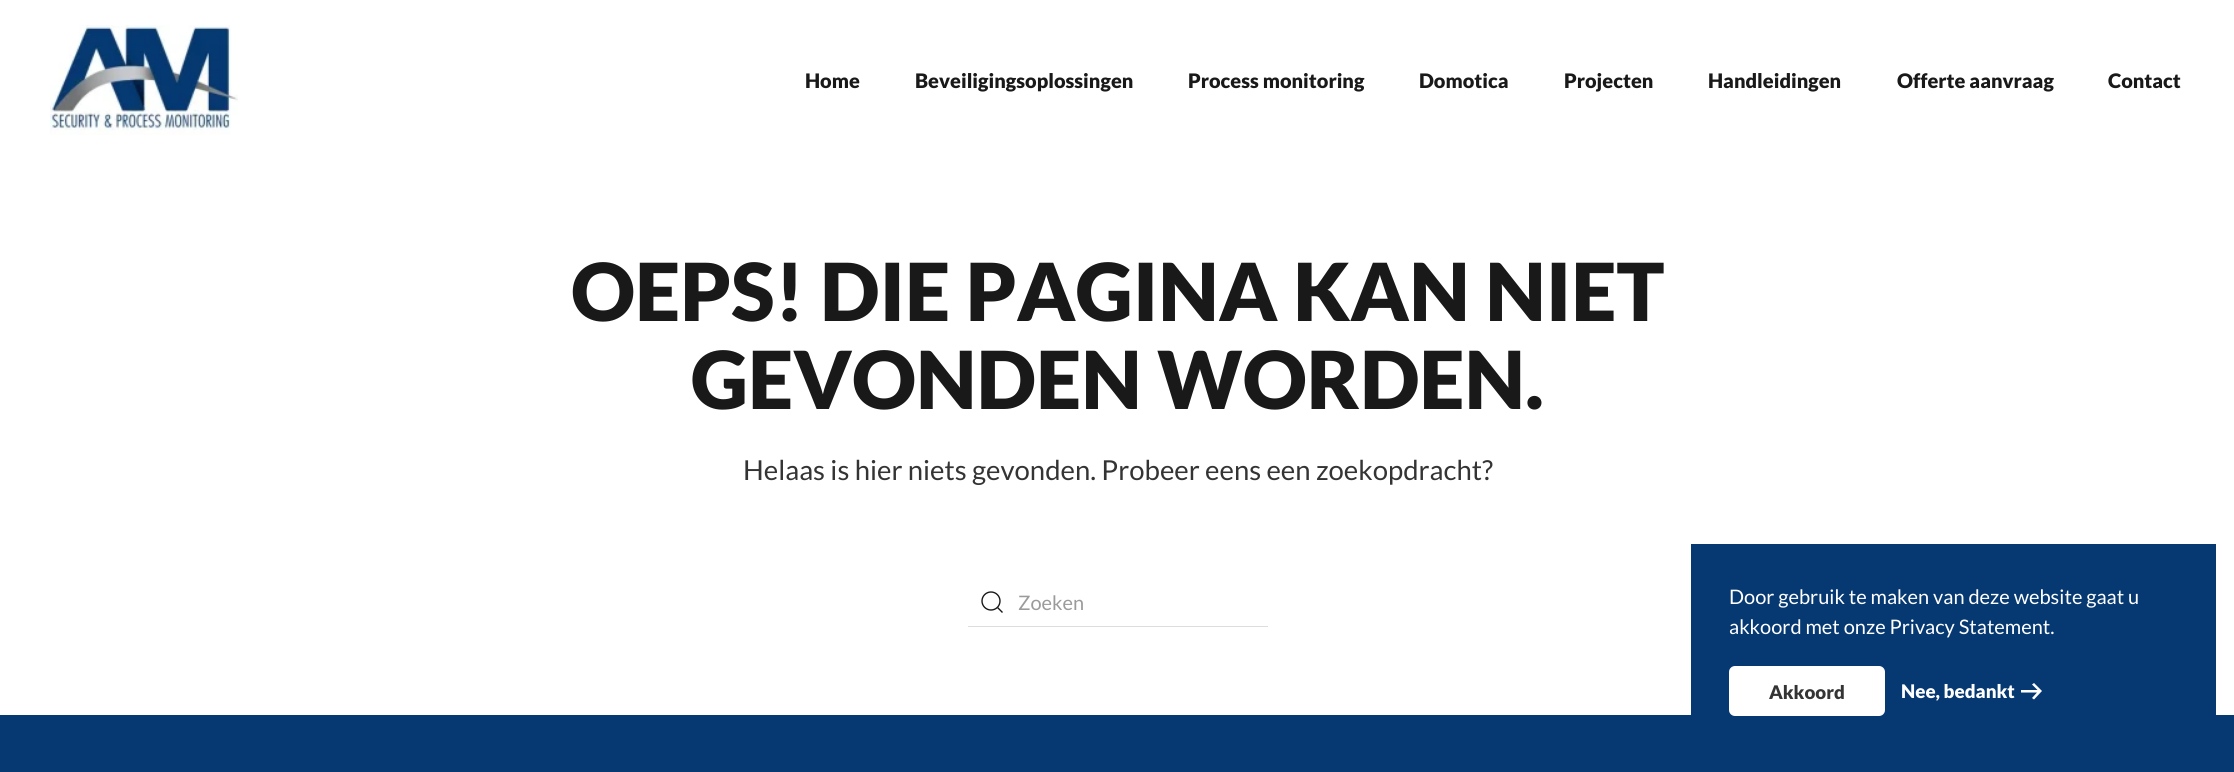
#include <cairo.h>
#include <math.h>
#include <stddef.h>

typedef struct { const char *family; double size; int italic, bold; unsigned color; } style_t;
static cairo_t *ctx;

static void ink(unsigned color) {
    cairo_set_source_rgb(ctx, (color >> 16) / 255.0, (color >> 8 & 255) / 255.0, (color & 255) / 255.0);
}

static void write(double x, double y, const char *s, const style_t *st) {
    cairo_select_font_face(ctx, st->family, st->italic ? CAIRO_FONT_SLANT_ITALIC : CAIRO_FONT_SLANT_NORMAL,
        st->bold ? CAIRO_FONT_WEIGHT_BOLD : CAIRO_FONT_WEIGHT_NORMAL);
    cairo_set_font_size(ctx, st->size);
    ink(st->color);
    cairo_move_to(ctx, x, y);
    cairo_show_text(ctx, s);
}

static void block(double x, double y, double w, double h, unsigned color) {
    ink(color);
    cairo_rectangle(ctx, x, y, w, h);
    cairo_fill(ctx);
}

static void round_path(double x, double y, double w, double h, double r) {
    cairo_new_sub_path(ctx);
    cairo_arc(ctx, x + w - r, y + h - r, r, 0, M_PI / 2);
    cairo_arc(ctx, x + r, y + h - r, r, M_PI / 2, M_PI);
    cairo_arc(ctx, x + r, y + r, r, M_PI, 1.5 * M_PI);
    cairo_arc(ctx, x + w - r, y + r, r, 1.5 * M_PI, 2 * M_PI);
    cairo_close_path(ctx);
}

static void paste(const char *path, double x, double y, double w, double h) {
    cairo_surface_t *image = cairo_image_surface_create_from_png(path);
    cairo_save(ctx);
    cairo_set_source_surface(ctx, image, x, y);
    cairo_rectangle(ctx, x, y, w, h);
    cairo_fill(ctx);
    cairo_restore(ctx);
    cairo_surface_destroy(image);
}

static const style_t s1 = {"Lato Black", 20, 0, 0, 0x191919};
static const style_t s2 = {"Lato Black", 80, 0, 0, 0x191919};
static const style_t s3 = {"Lato", 27.5, 0, 0, 0x343434};
static const style_t s4 = {"Lato", 20, 0, 0, 0x9b9b9b};
static const style_t s5 = {"Lato", 20, 0, 0, 0xffffff};
static const style_t s6 = {"Lato Black", 18.75, 0, 0, 0x343434};
static const style_t s7 = {"Lato Black", 18.75, 0, 0, 0xffffff};

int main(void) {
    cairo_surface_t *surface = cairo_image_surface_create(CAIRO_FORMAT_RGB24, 2234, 772);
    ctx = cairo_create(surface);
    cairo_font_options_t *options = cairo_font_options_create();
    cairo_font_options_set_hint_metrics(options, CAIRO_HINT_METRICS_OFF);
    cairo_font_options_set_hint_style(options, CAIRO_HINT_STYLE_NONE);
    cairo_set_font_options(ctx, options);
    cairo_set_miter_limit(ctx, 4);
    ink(0xffffff);
    cairo_paint(ctx);
    paste("pic1.png", 50, 25, 188, 110);
    write(805, 88, "Home", &s1);
    write(915, 88, "Beveiligingsoplossingen", &s1);
    write(1188, 88, "Process monitoring", &s1);
    write(1419, 88, "Domotica", &s1);
    write(1564, 88, "Projecten", &s1);
    write(1708, 88, "Handleidingen", &s1);
    write(1897, 88, "Offerte aanvraag", &s1);
    write(2108, 88, "Contact", &s1);
    write(571, 321, "OEPS! DIE PAGINA KAN NIET", &s2);
    write(691, 409, "GEVONDEN WORDEN.", &s2);
    write(743, 480, "Helaas is hier niets gevonden. Probeer eens een zoekopdracht?", &s3);
    cairo_new_path(ctx);
    cairo_arc(ctx, 991, 601, 9, 0, 2 * M_PI);
    ink(0x191919);
    cairo_set_line_width(ctx, 1.4);
    cairo_stroke(ctx);
    cairo_new_path(ctx);
    cairo_move_to(ctx, 997.5, 607.5);
    cairo_line_to(ctx, 1002.5, 612.5);
    cairo_close_path(ctx);
    cairo_stroke(ctx);
    block(968, 626, 300, 1, 0xdddddd);
    write(1018, 610, "Zoeken", &s4);
    block(0, 715, 2234, 57, 0x063972);
    block(1691, 544, 525, 171, 0x063972);
    write(1729, 604, "Door gebruik te maken van deze website gaat u", &s5);
    write(1729, 634, "akkoord met onze Privacy Statement.", &s5);
    round_path(1729, 666, 156, 50, 6);
    cairo_fill(ctx);
    write(1769, 699, "Akkoord", &s6);
    write(1901, 698, "Nee, bedankt", &s7);
    cairo_save(ctx);
    cairo_rectangle(ctx, 2021, 683, 22, 17);
    cairo_clip(ctx);
    cairo_new_path(ctx);
    cairo_move_to(ctx, 2042, 691);
    cairo_line_to(ctx, 2034, 699.5);
    cairo_line_to(ctx, 2032, 698);
    cairo_line_to(ctx, 2037, 692.5);
    cairo_line_to(ctx, 2015, 692.5);
    cairo_line_to(ctx, 2015, 690);
    cairo_line_to(ctx, 2037.5, 690);
    cairo_line_to(ctx, 2032, 684.5);
    cairo_line_to(ctx, 2034, 683);
    cairo_close_path(ctx);
    cairo_fill(ctx);
    cairo_restore(ctx);
    cairo_surface_write_to_png(surface, "screenshot.png");
    cairo_font_options_destroy(options);
    cairo_destroy(ctx);
    cairo_surface_destroy(surface);
    return 0;
}
